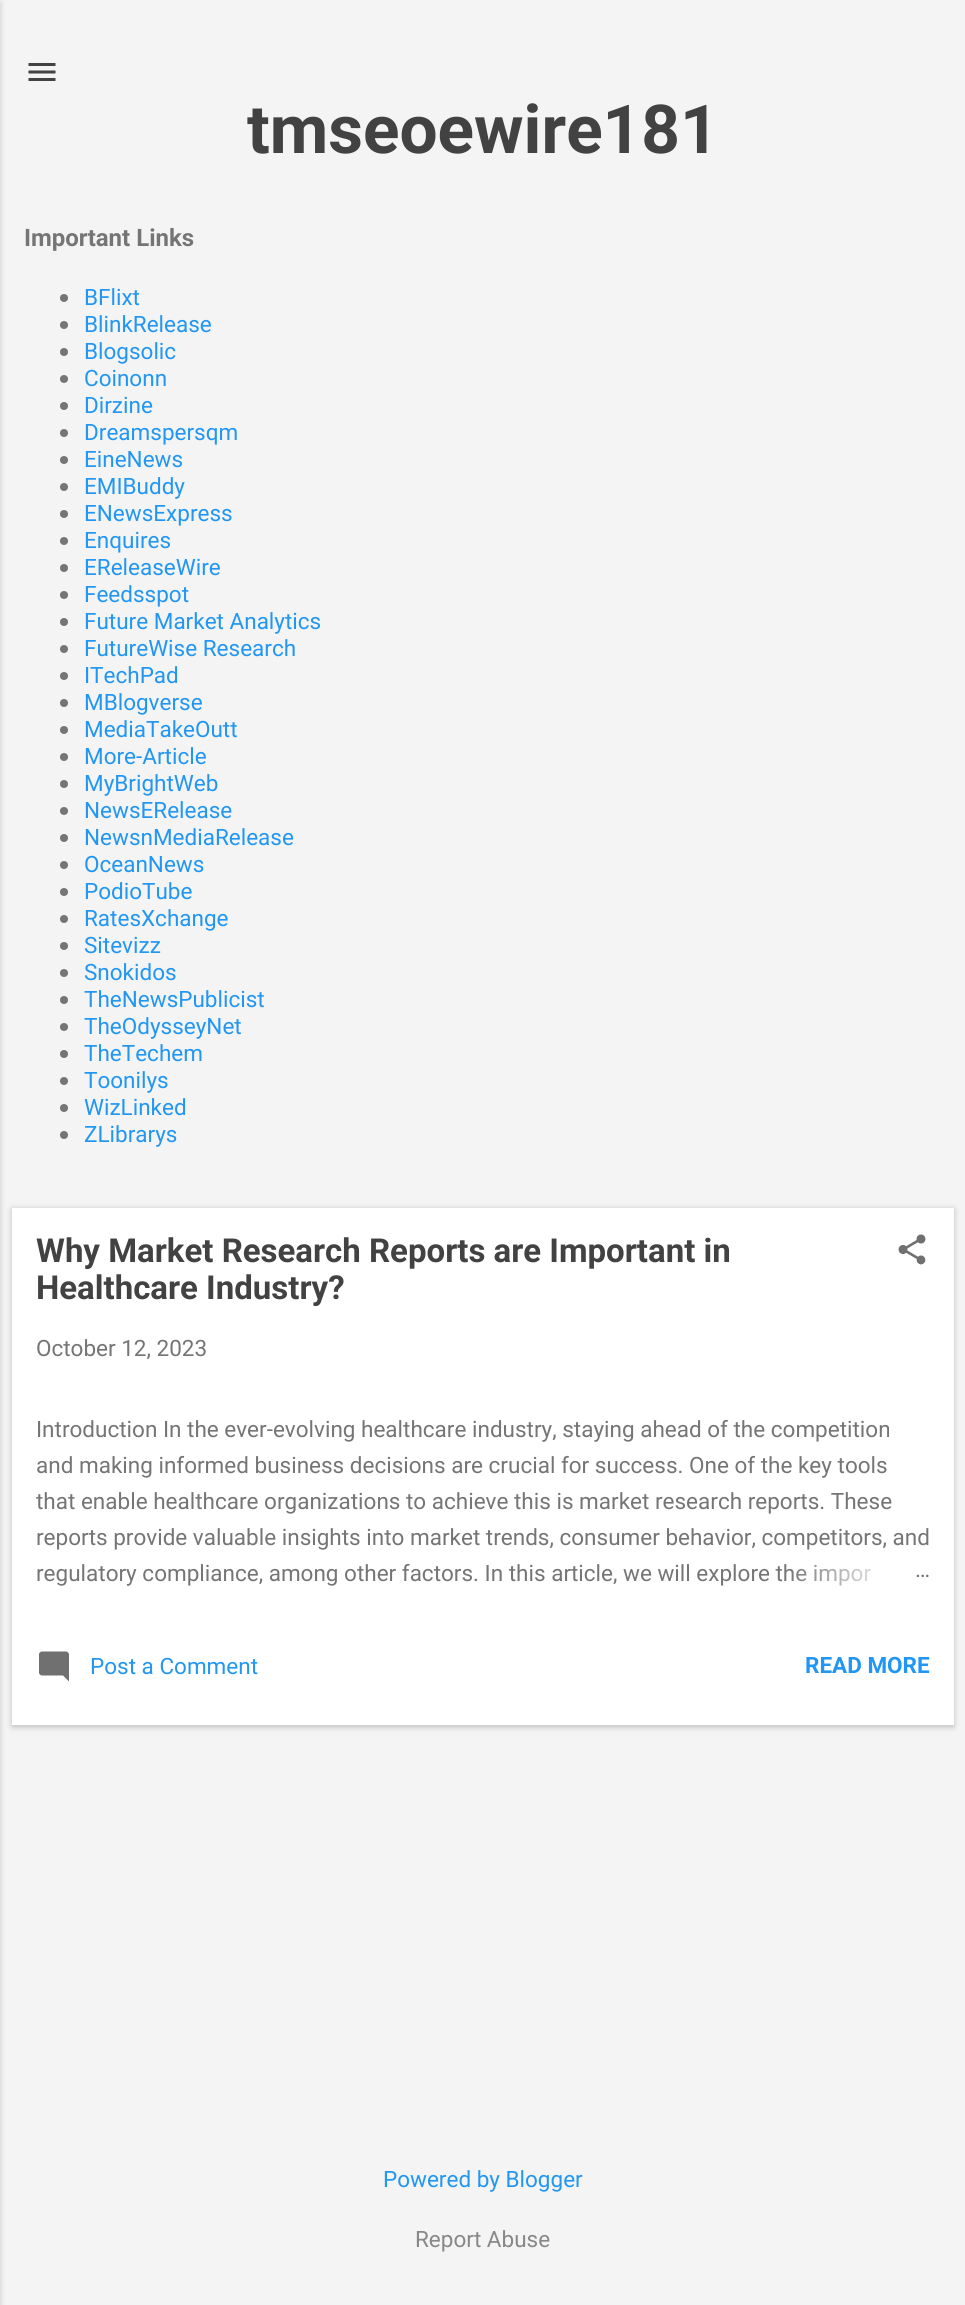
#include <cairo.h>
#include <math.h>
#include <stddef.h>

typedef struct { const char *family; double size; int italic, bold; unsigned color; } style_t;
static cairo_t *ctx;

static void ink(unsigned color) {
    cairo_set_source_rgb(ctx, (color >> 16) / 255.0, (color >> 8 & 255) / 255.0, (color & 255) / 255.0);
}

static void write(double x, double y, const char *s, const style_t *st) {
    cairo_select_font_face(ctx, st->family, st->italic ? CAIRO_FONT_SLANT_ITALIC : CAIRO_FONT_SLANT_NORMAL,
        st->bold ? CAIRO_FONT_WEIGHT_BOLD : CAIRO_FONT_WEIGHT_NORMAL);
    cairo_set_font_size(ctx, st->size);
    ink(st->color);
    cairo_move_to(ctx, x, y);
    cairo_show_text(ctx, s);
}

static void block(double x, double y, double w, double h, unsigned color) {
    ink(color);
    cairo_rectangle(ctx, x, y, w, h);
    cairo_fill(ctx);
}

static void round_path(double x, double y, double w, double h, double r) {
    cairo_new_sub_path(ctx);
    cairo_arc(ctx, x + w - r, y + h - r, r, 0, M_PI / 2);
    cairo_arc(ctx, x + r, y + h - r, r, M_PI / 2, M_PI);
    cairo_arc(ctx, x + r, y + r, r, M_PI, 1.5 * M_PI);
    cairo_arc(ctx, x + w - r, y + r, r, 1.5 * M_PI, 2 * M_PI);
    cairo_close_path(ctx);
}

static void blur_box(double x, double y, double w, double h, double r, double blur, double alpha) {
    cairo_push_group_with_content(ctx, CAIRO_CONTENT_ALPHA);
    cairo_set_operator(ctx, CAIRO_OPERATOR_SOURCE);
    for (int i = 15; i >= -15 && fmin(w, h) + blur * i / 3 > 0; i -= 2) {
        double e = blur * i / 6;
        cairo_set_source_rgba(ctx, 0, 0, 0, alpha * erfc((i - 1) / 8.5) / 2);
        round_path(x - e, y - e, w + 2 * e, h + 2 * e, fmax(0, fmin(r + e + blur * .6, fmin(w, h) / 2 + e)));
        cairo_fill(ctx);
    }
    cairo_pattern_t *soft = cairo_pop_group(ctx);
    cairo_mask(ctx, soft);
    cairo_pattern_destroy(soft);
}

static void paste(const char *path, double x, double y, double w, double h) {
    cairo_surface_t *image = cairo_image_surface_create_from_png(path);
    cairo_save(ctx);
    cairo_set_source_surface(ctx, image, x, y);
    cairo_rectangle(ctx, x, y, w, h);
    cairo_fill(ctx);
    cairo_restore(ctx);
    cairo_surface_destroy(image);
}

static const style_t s1 = {"Roboto", 67.5, 0, 1, 0x424242};
static const style_t s2 = {"Roboto", 24, 0, 1, 0x757575};
static const style_t s3 = {"Roboto", 22.5, 0, 0, 0x2196f3};
static const style_t s4 = {"Roboto", 33, 0, 1, 0x424242};
static const style_t s5 = {"Roboto", 22.5, 0, 0, 0x757575};
static const style_t s6 = {"Roboto", 22.5, 0, 1, 0x2196f3};
static const style_t s7 = {"Roboto", 22.5, 0, 0, 0x888888};

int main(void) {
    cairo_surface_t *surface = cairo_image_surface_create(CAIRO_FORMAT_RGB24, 965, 2305);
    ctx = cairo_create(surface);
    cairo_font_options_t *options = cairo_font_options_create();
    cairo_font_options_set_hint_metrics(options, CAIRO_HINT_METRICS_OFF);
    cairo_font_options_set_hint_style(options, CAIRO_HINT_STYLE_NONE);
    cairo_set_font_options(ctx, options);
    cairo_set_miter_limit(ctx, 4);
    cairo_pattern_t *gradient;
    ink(0xf4f4f4);
    cairo_paint(ctx);
    ink(0x000000);
    blur_box(-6, 2, 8, 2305, 0, 2, 0.1);
    paste("pic1.png", 28, 63, 28, 18);
    write(247, 153, "tmseoewire181", &s1);
    write(24, 246, "Important Links", &s2);
    cairo_new_path(ctx);
    cairo_arc(ctx, 64, 298, 4, 0, 2 * M_PI);
    cairo_fill(ctx);
    write(84, 305, "BFlixt", &s3);
    ink(0x757575);
    cairo_new_path(ctx);
    cairo_arc(ctx, 64, 325, 4, 0, 2 * M_PI);
    cairo_fill(ctx);
    write(84, 332, "BlinkRelease", &s3);
    ink(0x757575);
    cairo_new_path(ctx);
    cairo_arc(ctx, 64, 352, 4, 0, 2 * M_PI);
    cairo_fill(ctx);
    write(84, 359, "Blogsolic", &s3);
    ink(0x757575);
    cairo_new_path(ctx);
    cairo_arc(ctx, 64, 379, 4, 0, 2 * M_PI);
    cairo_fill(ctx);
    write(84, 386, "Coinonn", &s3);
    ink(0x757575);
    cairo_new_path(ctx);
    cairo_arc(ctx, 64, 406, 4, 0, 2 * M_PI);
    cairo_fill(ctx);
    write(84, 413, "Dirzine", &s3);
    ink(0x757575);
    cairo_new_path(ctx);
    cairo_arc(ctx, 64, 433, 4, 0, 2 * M_PI);
    cairo_fill(ctx);
    write(84, 440, "Dreamspersqm", &s3);
    ink(0x757575);
    cairo_new_path(ctx);
    cairo_arc(ctx, 64, 460, 4, 0, 2 * M_PI);
    cairo_fill(ctx);
    write(84, 467, "EineNews", &s3);
    ink(0x757575);
    cairo_new_path(ctx);
    cairo_arc(ctx, 64, 487, 4, 0, 2 * M_PI);
    cairo_fill(ctx);
    write(84, 494, "EMIBuddy", &s3);
    ink(0x757575);
    cairo_new_path(ctx);
    cairo_arc(ctx, 64, 514, 4, 0, 2 * M_PI);
    cairo_fill(ctx);
    write(84, 521, "ENewsExpress", &s3);
    ink(0x757575);
    cairo_new_path(ctx);
    cairo_arc(ctx, 64, 541, 4, 0, 2 * M_PI);
    cairo_fill(ctx);
    write(84, 548, "Enquires", &s3);
    ink(0x757575);
    cairo_new_path(ctx);
    cairo_arc(ctx, 64, 568, 4, 0, 2 * M_PI);
    cairo_fill(ctx);
    write(84, 575, "EReleaseWire", &s3);
    ink(0x757575);
    cairo_new_path(ctx);
    cairo_arc(ctx, 64, 595, 4, 0, 2 * M_PI);
    cairo_fill(ctx);
    write(84, 602, "Feedsspot", &s3);
    ink(0x757575);
    cairo_new_path(ctx);
    cairo_arc(ctx, 64, 622, 4, 0, 2 * M_PI);
    cairo_fill(ctx);
    write(84, 629, "Future Market Analytics", &s3);
    ink(0x757575);
    cairo_new_path(ctx);
    cairo_arc(ctx, 64, 649, 4, 0, 2 * M_PI);
    cairo_fill(ctx);
    write(84, 656, "FutureWise Research", &s3);
    ink(0x757575);
    cairo_new_path(ctx);
    cairo_arc(ctx, 64, 676, 4, 0, 2 * M_PI);
    cairo_fill(ctx);
    write(84, 683, "ITechPad", &s3);
    ink(0x757575);
    cairo_new_path(ctx);
    cairo_arc(ctx, 64, 703, 4, 0, 2 * M_PI);
    cairo_fill(ctx);
    write(84, 710, "MBlogverse", &s3);
    ink(0x757575);
    cairo_new_path(ctx);
    cairo_arc(ctx, 64, 730, 4, 0, 2 * M_PI);
    cairo_fill(ctx);
    write(84, 737, "MediaTakeOutt", &s3);
    ink(0x757575);
    cairo_new_path(ctx);
    cairo_arc(ctx, 64, 757, 4, 0, 2 * M_PI);
    cairo_fill(ctx);
    write(84, 764, "More-Article", &s3);
    ink(0x757575);
    cairo_new_path(ctx);
    cairo_arc(ctx, 64, 784, 4, 0, 2 * M_PI);
    cairo_fill(ctx);
    write(84, 791, "MyBrightWeb", &s3);
    ink(0x757575);
    cairo_new_path(ctx);
    cairo_arc(ctx, 64, 811, 4, 0, 2 * M_PI);
    cairo_fill(ctx);
    write(84, 818, "NewsERelease", &s3);
    ink(0x757575);
    cairo_new_path(ctx);
    cairo_arc(ctx, 64, 838, 4, 0, 2 * M_PI);
    cairo_fill(ctx);
    write(84, 845, "NewsnMediaRelease", &s3);
    ink(0x757575);
    cairo_new_path(ctx);
    cairo_arc(ctx, 64, 865, 4, 0, 2 * M_PI);
    cairo_fill(ctx);
    write(84, 872, "OceanNews", &s3);
    ink(0x757575);
    cairo_new_path(ctx);
    cairo_arc(ctx, 64, 892, 4, 0, 2 * M_PI);
    cairo_fill(ctx);
    write(84, 899, "PodioTube", &s3);
    ink(0x757575);
    cairo_new_path(ctx);
    cairo_arc(ctx, 64, 919, 4, 0, 2 * M_PI);
    cairo_fill(ctx);
    write(84, 926, "RatesXchange", &s3);
    ink(0x757575);
    cairo_new_path(ctx);
    cairo_arc(ctx, 64, 946, 4, 0, 2 * M_PI);
    cairo_fill(ctx);
    write(84, 953, "Sitevizz", &s3);
    ink(0x757575);
    cairo_new_path(ctx);
    cairo_arc(ctx, 64, 973, 4, 0, 2 * M_PI);
    cairo_fill(ctx);
    write(84, 980, "Snokidos", &s3);
    ink(0x757575);
    cairo_new_path(ctx);
    cairo_arc(ctx, 64, 1000, 4, 0, 2 * M_PI);
    cairo_fill(ctx);
    write(84, 1007, "TheNewsPublicist", &s3);
    ink(0x757575);
    cairo_new_path(ctx);
    cairo_arc(ctx, 64, 1027, 4, 0, 2 * M_PI);
    cairo_fill(ctx);
    write(84, 1034, "TheOdysseyNet", &s3);
    ink(0x757575);
    cairo_new_path(ctx);
    cairo_arc(ctx, 64, 1054, 4, 0, 2 * M_PI);
    cairo_fill(ctx);
    write(84, 1061, "TheTechem", &s3);
    ink(0x757575);
    cairo_new_path(ctx);
    cairo_arc(ctx, 64, 1081, 4, 0, 2 * M_PI);
    cairo_fill(ctx);
    write(84, 1088, "Toonilys", &s3);
    ink(0x757575);
    cairo_new_path(ctx);
    cairo_arc(ctx, 64, 1108, 4, 0, 2 * M_PI);
    cairo_fill(ctx);
    write(84, 1115, "WizLinked", &s3);
    ink(0x757575);
    cairo_new_path(ctx);
    cairo_arc(ctx, 64, 1135, 4, 0, 2 * M_PI);
    cairo_fill(ctx);
    write(84, 1142, "ZLibrarys", &s3);
    ink(0x3c4043);
    blur_box(12, 1209, 942, 518, 0, 3, 0.3);
    block(12, 1208, 942, 517, 0xffffff);
    write(36, 1262, "Why Market Research Reports are Important in", &s4);
    write(36, 1299, "Healthcare Industry?", &s4);
    paste("pic2.png", 898, 1234, 28, 31);
    write(36, 1356, "October 12, 2023", &s5);
    write(36, 1437, "Introduction In the ever-evolving healthcare industry, staying ahead of the competition", &s5);
    write(36, 1473, "and making informed business decisions are crucial for success. One of the key tools", &s5);
    write(36, 1509, "that enable healthcare organizations to achieve this is market research reports. These", &s5);
    write(36, 1545, "reports provide valuable insights into market trends, consumer behavior, competitors, and", &s5);
    write(36, 1581, "regulatory compliance, among other factors. In this article, we will explore the impor", &s5);
    gradient = cairo_pattern_create_linear(930, 1574, 786, 1574);
    cairo_pattern_add_color_stop_rgba(gradient, 0, 1, 1, 1, 1);
    cairo_pattern_add_color_stop_rgba(gradient, 0.2, 1, 1, 1, 1);
    cairo_pattern_add_color_stop_rgba(gradient, 1, 1, 1, 1, 0);
    cairo_set_source(ctx, gradient);
    cairo_pattern_destroy(gradient);
    cairo_rectangle(ctx, 788, 1564, 83, 22);
    cairo_fill(ctx);
    write(915, 1577, "…", &s5);
    paste("pic3.png", 39, 1651, 30, 31);
    write(90, 1674, "Post a Comment", &s3);
    write(805, 1673, "READ MORE", &s6);
    write(383, 2187, "Powered by Blogger", &s3);
    write(415, 2247, "Report Abuse", &s7);
    cairo_surface_write_to_png(surface, "screenshot.png");
    cairo_font_options_destroy(options);
    cairo_destroy(ctx);
    cairo_surface_destroy(surface);
    return 0;
}
